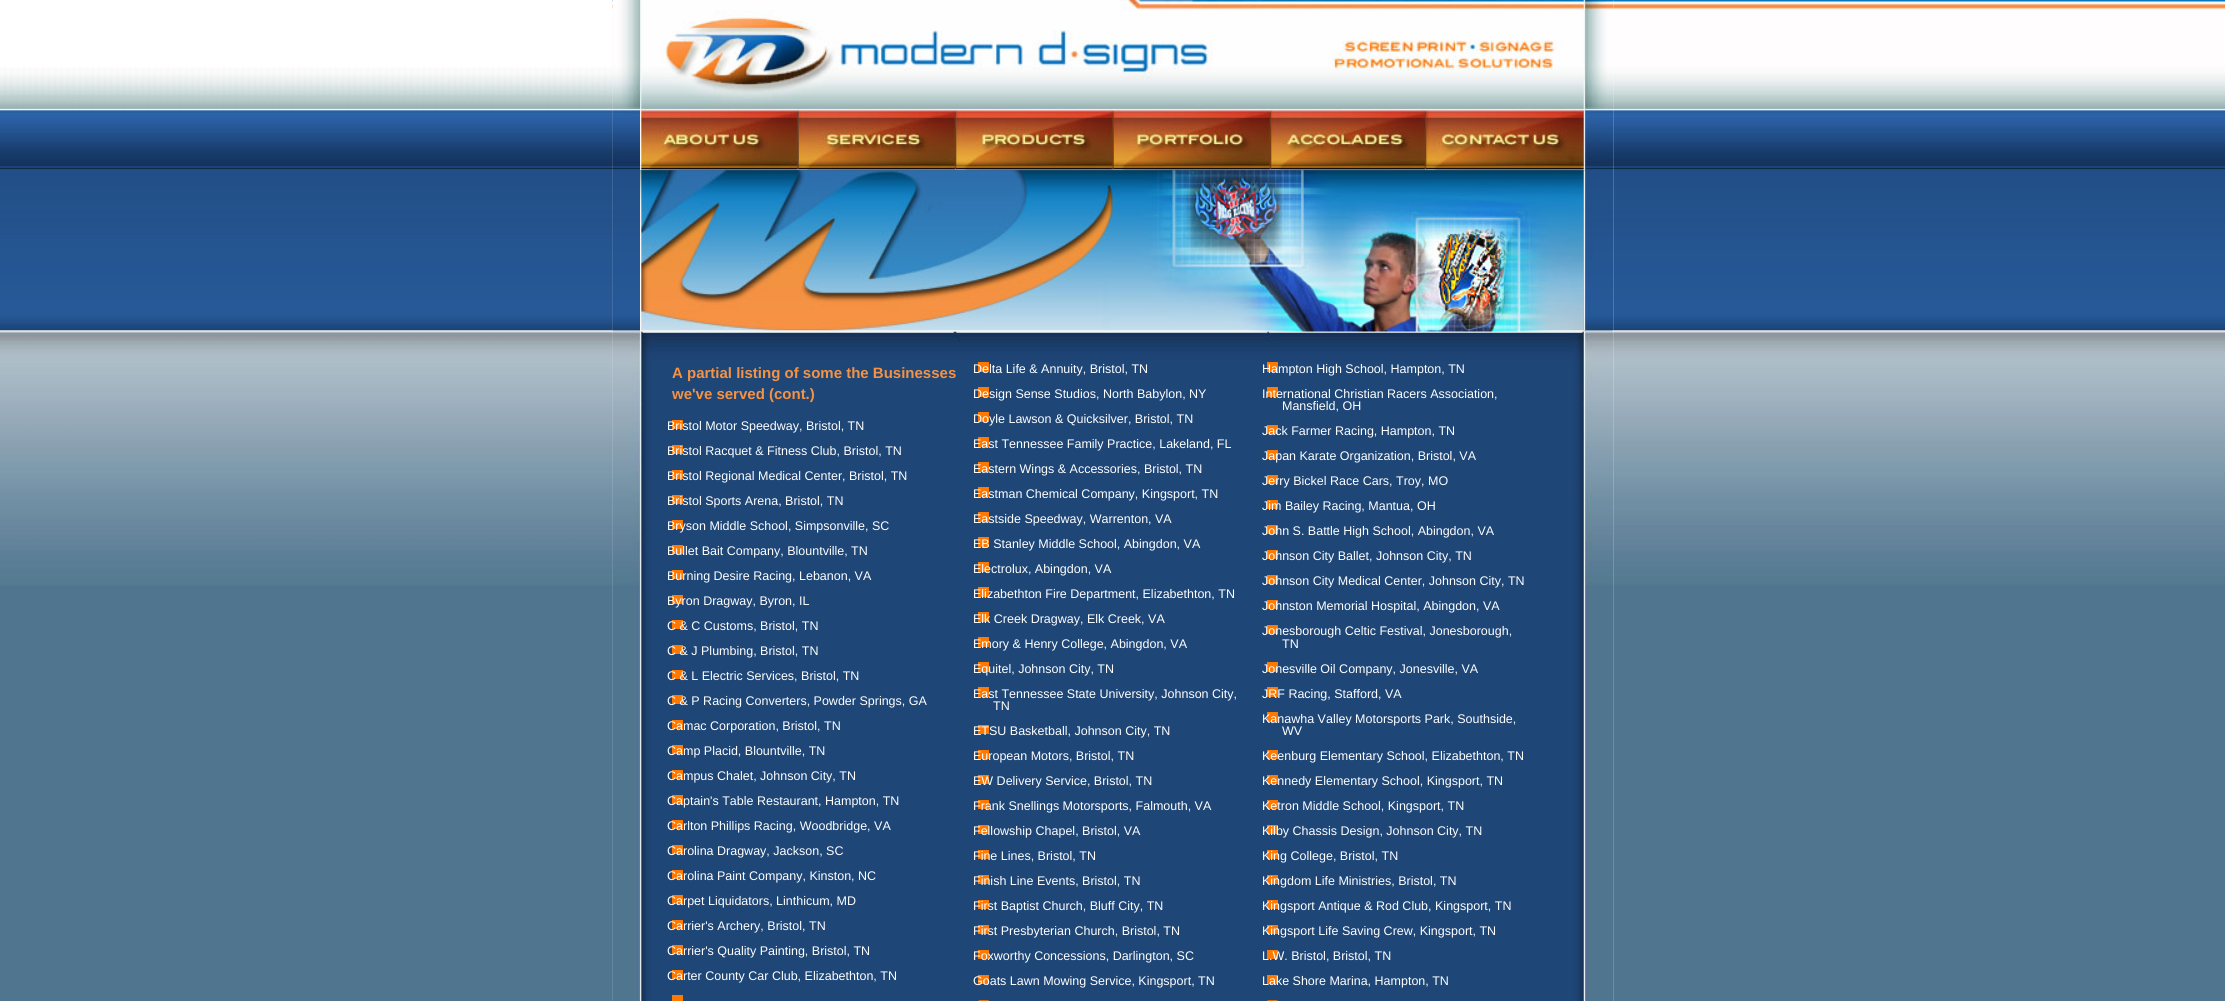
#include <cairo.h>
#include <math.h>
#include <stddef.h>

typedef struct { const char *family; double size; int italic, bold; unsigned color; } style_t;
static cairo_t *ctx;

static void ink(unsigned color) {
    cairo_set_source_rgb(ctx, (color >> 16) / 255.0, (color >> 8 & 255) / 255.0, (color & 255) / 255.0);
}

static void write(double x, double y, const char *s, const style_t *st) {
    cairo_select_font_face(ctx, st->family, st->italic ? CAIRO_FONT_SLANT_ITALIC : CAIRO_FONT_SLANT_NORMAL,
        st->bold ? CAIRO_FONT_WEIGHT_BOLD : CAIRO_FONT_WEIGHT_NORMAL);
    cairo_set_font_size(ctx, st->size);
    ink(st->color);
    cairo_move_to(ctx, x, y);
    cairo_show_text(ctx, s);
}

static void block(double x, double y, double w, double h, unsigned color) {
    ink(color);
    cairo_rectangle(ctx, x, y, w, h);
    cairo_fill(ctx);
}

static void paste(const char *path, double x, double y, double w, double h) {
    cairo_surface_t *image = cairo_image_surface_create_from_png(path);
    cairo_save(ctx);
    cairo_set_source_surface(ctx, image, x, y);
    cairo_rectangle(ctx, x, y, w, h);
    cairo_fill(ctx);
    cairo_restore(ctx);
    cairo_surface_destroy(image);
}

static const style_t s1 = {"Liberation Sans", 15, 0, 1, 0xf59243};
static const style_t s2 = {"Liberation Sans", 12.5, 0, 0, 0xffffff};

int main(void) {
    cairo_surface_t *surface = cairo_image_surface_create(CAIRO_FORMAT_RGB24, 2225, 1001);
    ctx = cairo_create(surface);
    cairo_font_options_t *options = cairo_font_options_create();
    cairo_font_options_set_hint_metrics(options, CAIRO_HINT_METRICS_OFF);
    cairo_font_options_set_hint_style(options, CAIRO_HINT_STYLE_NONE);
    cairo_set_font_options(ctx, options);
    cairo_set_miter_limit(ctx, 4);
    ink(0xffffff);
    cairo_paint(ctx);
    paste("pic1.png", 0, 67, 613, 934);
    paste("pic2.png", 612, 0, 1002, 1001);
    paste("pic3.png", 612, 0, 995, 108);
    paste("pic4.png", 612, 108, 28, 63);
    paste("pic5.png", 640, 107, 159, 64);
    paste("pic6.png", 798, 108, 159, 63);
    paste("pic7.png", 956, 108, 158, 63);
    paste("pic8.png", 1113, 108, 159, 63);
    paste("pic9.png", 1271, 108, 156, 63);
    paste("pic10.png", 1426, 107, 158, 64);
    paste("pic11.png", 1583, 107, 21, 64);
    paste("pic12.png", 612, 170, 28, 161);
    paste("pic15.png", 612, 331, 1001, 670);
    paste("pic13.png", 640, 170, 944, 162);
    paste("pic14.png", 1583, 170, 30, 161);
    write(672, 378, "A partial listing of some the Businesses", &s1);
    write(672, 399, "we've served (cont.)", &s1);
    block(672, 420, 11, 9, 0xff7800);
    write(667, 430, "Bristol Motor Speedway, Bristol, TN", &s2);
    block(672, 445, 11, 9, 0xff7800);
    write(667, 455, "Bristol Racquet & Fitness Club, Bristol, TN", &s2);
    block(672, 470, 11, 9, 0xff7800);
    write(667, 480, "Bristol Regional Medical Center, Bristol, TN", &s2);
    block(672, 495, 11, 9, 0xff7800);
    write(667, 505, "Bristol Sports Arena, Bristol, TN", &s2);
    block(672, 520, 11, 9, 0xff7800);
    write(667, 530, "Bryson Middle School, Simpsonville, SC", &s2);
    block(672, 545, 11, 9, 0xff7800);
    write(667, 555, "Bullet Bait Company, Blountville, TN", &s2);
    block(672, 570, 11, 9, 0xff7800);
    write(667, 580, "Burning Desire Racing, Lebanon, VA", &s2);
    block(672, 595, 11, 9, 0xff7800);
    write(667, 605, "Byron Dragway, Byron, IL", &s2);
    block(672, 620, 11, 9, 0xff7800);
    write(667, 630, "C & C Customs, Bristol, TN", &s2);
    block(672, 645, 11, 9, 0xff7800);
    write(667, 655, "C & J Plumbing, Bristol, TN", &s2);
    block(672, 670, 11, 9, 0xff7800);
    write(667, 680, "C & L Electric Services, Bristol, TN", &s2);
    block(672, 695, 11, 9, 0xff7800);
    write(667, 705, "C & P Racing Converters, Powder Springs, GA", &s2);
    block(672, 720, 11, 9, 0xff7800);
    write(667, 730, "Camac Corporation, Bristol, TN", &s2);
    block(672, 745, 11, 9, 0xff7800);
    write(667, 755, "Camp Placid, Blountville, TN", &s2);
    block(672, 770, 11, 9, 0xff7800);
    write(667, 780, "Campus Chalet, Johnson City, TN", &s2);
    block(672, 795, 11, 9, 0xff7800);
    write(667, 805, "Captain's Table Restaurant, Hampton, TN", &s2);
    block(672, 820, 11, 9, 0xff7800);
    write(667, 830, "Carlton Phillips Racing, Woodbridge, VA", &s2);
    block(672, 845, 11, 9, 0xff7800);
    write(667, 855, "Carolina Dragway, Jackson, SC", &s2);
    block(672, 870, 11, 9, 0xff7800);
    write(667, 880, "Carolina Paint Company, Kinston, NC", &s2);
    block(672, 895, 11, 9, 0xff7800);
    write(667, 905, "Carpet Liquidators, Linthicum, MD", &s2);
    block(672, 920, 11, 9, 0xff7800);
    write(667, 930, "Carrier's Archery, Bristol, TN", &s2);
    block(672, 945, 11, 9, 0xff7800);
    write(667, 955, "Carrier's Quality Painting, Bristol, TN", &s2);
    block(672, 970, 11, 9, 0xff7800);
    write(667, 980, "Carter County Car Club, Elizabethton, TN", &s2);
    block(672, 995, 11, 6, 0xff7800);
    block(978, 362, 11, 10, 0xff7800);
    write(973, 373, "Delta Life & Annuity, Bristol, TN", &s2);
    block(978, 387, 11, 10, 0xff7800);
    write(973, 398, "Design Sense Studios, North Babylon, NY", &s2);
    block(978, 412, 11, 10, 0xff7800);
    write(973, 423, "Doyle Lawson & Quicksilver, Bristol, TN", &s2);
    block(978, 437, 11, 10, 0xff7800);
    write(973, 448, "East Tennessee Family Practice, Lakeland, FL", &s2);
    block(978, 462, 11, 10, 0xff7800);
    write(973, 473, "Eastern Wings & Accessories, Bristol, TN", &s2);
    block(978, 487, 11, 10, 0xff7800);
    write(973, 498, "Eastman Chemical Company, Kingsport, TN", &s2);
    block(978, 512, 11, 10, 0xff7800);
    write(973, 523, "Eastside Speedway, Warrenton, VA", &s2);
    block(978, 537, 11, 10, 0xff7800);
    write(973, 548, "EB Stanley Middle School, Abingdon, VA", &s2);
    block(978, 562, 11, 10, 0xff7800);
    write(973, 573, "Electrolux, Abingdon, VA", &s2);
    block(978, 587, 11, 10, 0xff7800);
    write(973, 598, "Elizabethton Fire Department, Elizabethton, TN", &s2);
    block(978, 612, 11, 10, 0xff7800);
    write(973, 623, "Elk Creek Dragway, Elk Creek, VA", &s2);
    block(978, 637, 11, 10, 0xff7800);
    write(973, 648, "Emory & Henry College, Abingdon, VA", &s2);
    block(978, 662, 11, 10, 0xff7800);
    write(973, 673, "Equitel, Johnson City, TN", &s2);
    block(978, 687, 11, 10, 0xff7800);
    write(973, 698, "East Tennessee State University, Johnson City,", &s2);
    write(993, 710, "TN", &s2);
    block(978, 725, 11, 9, 0xff7800);
    write(973, 735, "ETSU Basketball, Johnson City, TN", &s2);
    block(978, 750, 11, 9, 0xff7800);
    write(973, 760, "European Motors, Bristol, TN", &s2);
    block(978, 775, 11, 9, 0xff7800);
    write(973, 785, "EW Delivery Service, Bristol, TN", &s2);
    block(978, 800, 11, 9, 0xff7800);
    write(973, 810, "Frank Snellings Motorsports, Falmouth, VA", &s2);
    block(978, 825, 11, 9, 0xff7800);
    write(973, 835, "Fellowship Chapel, Bristol, VA", &s2);
    block(978, 850, 11, 9, 0xff7800);
    write(973, 860, "Fine Lines, Bristol, TN", &s2);
    block(978, 875, 11, 9, 0xff7800);
    write(973, 885, "Finish Line Events, Bristol, TN", &s2);
    block(978, 900, 11, 9, 0xff7800);
    write(973, 910, "First Baptist Church, Bluff City, TN", &s2);
    block(978, 925, 11, 9, 0xff7800);
    write(973, 935, "First Presbyterian Church, Bristol, TN", &s2);
    block(978, 950, 11, 9, 0xff7800);
    write(973, 960, "Foxworthy Concessions, Darlington, SC", &s2);
    block(978, 975, 11, 9, 0xff7800);
    write(973, 985, "Goats Lawn Mowing Service, Kingsport, TN", &s2);
    paste("pic16.png", 978, 1000, 11, 1);
    block(1267, 362, 11, 10, 0xff7800);
    write(1262, 373, "Hampton High School, Hampton, TN", &s2);
    block(1267, 387, 11, 10, 0xff7800);
    write(1262, 398, "International Christian Racers Association,", &s2);
    write(1282, 410, "Mansfield, OH", &s2);
    block(1267, 425, 11, 9, 0xff7800);
    write(1262, 435, "Jack Farmer Racing, Hampton, TN", &s2);
    block(1267, 450, 11, 9, 0xff7800);
    write(1262, 460, "Japan Karate Organization, Bristol, VA", &s2);
    block(1267, 475, 11, 9, 0xff7800);
    write(1262, 485, "Jerry Bickel Race Cars, Troy, MO", &s2);
    block(1267, 500, 11, 9, 0xff7800);
    write(1262, 510, "Jim Bailey Racing, Mantua, OH", &s2);
    block(1267, 525, 11, 9, 0xff7800);
    write(1262, 535, "John S. Battle High School, Abingdon, VA", &s2);
    block(1267, 550, 11, 9, 0xff7800);
    write(1262, 560, "Johnson City Ballet, Johnson City, TN", &s2);
    block(1267, 575, 11, 9, 0xff7800);
    write(1262, 585, "Johnson City Medical Center, Johnson City, TN", &s2);
    block(1267, 600, 11, 9, 0xff7800);
    write(1262, 610, "Johnston Memorial Hospital, Abingdon, VA", &s2);
    block(1267, 625, 11, 9, 0xff7800);
    write(1262, 635, "Jonesborough Celtic Festival, Jonesborough,", &s2);
    write(1282, 648, "TN", &s2);
    block(1267, 662, 11, 10, 0xff7800);
    write(1262, 673, "Jonesville Oil Company, Jonesville, VA", &s2);
    block(1267, 687, 11, 10, 0xff7800);
    write(1262, 698, "JRF Racing, Stafford, VA", &s2);
    block(1267, 712, 11, 10, 0xff7800);
    write(1262, 723, "Kanawha Valley Motorsports Park, Southside,", &s2);
    write(1282, 735, "WV", &s2);
    block(1267, 750, 11, 9, 0xff7800);
    write(1262, 760, "Keenburg Elementary School, Elizabethton, TN", &s2);
    block(1267, 775, 11, 9, 0xff7800);
    write(1262, 785, "Kennedy Elementary School, Kingsport, TN", &s2);
    block(1267, 800, 11, 9, 0xff7800);
    write(1262, 810, "Ketron Middle School, Kingsport, TN", &s2);
    block(1267, 825, 11, 9, 0xff7800);
    write(1262, 835, "Kilby Chassis Design, Johnson City, TN", &s2);
    block(1267, 850, 11, 9, 0xff7800);
    write(1262, 860, "King College, Bristol, TN", &s2);
    block(1267, 875, 11, 9, 0xff7800);
    write(1262, 885, "Kingdom Life Ministries, Bristol, TN", &s2);
    block(1267, 900, 11, 9, 0xff7800);
    write(1262, 910, "Kingsport Antique & Rod Club, Kingsport, TN", &s2);
    block(1267, 925, 11, 9, 0xff7800);
    write(1262, 935, "Kingsport Life Saving Crew, Kingsport, TN", &s2);
    block(1267, 950, 11, 9, 0xff7800);
    write(1262, 960, "L.W. Bristol, Bristol, TN", &s2);
    block(1267, 975, 11, 9, 0xff7800);
    write(1262, 985, "Lake Shore Marina, Hampton, TN", &s2);
    paste("pic17.png", 1267, 1000, 11, 1);
    paste("pic18.png", 1613, 0, 612, 1001);
    cairo_surface_write_to_png(surface, "screenshot.png");
    cairo_font_options_destroy(options);
    cairo_destroy(ctx);
    cairo_surface_destroy(surface);
    return 0;
}
